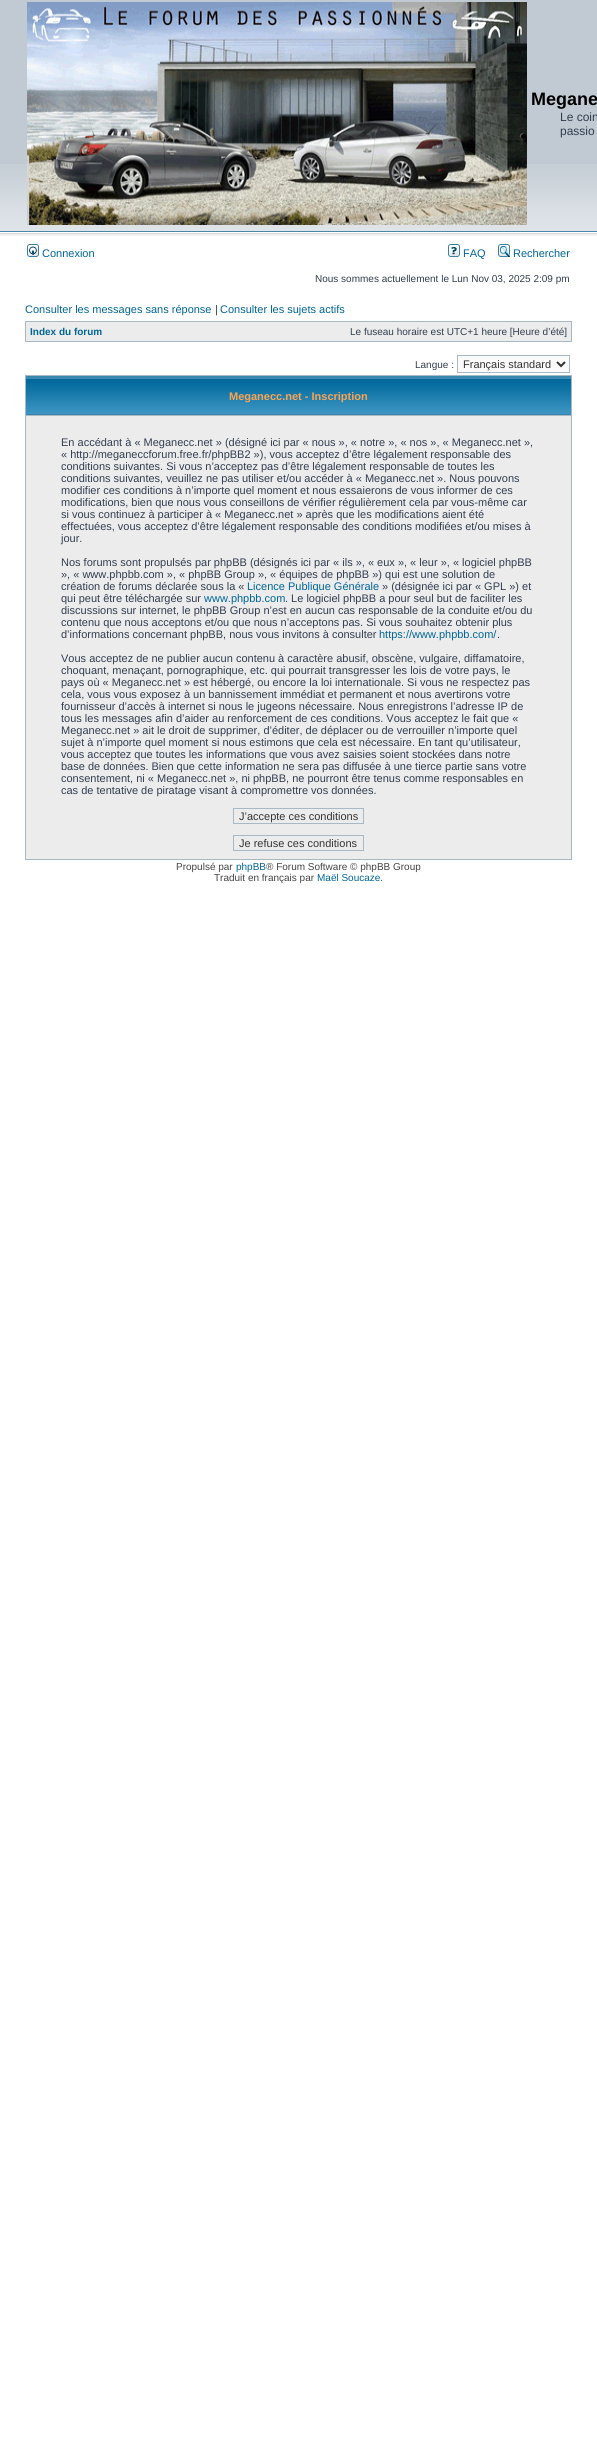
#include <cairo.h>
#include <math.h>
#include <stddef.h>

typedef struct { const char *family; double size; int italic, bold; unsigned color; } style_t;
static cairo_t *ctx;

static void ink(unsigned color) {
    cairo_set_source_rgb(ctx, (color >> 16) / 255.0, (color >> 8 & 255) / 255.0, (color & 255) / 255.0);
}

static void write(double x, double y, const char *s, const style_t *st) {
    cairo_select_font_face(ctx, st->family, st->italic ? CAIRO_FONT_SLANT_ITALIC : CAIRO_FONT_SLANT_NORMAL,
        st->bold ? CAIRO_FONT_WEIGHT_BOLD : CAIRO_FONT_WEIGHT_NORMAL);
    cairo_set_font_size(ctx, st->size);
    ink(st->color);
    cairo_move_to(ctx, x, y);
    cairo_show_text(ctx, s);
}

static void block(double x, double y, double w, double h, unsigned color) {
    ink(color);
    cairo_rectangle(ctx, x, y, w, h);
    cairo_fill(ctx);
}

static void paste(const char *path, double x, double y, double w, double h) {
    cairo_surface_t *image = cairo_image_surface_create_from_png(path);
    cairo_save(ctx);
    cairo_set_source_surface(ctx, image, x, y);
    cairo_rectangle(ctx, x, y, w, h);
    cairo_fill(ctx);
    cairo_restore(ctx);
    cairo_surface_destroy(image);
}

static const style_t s1 = {"Liberation Sans", 18, 0, 1, 0x000000};
static const style_t s2 = {"Liberation Sans", 12, 0, 0, 0x323d4f};
static const style_t s3 = {"Liberation Sans", 11, 0, 0, 0x006597};
static const style_t s4 = {"Liberation Sans", 10, 0, 0, 0x323d4f};
static const style_t s5 = {"Liberation Sans", 11, 0, 0, 0x323d4f};
static const style_t s6 = {"Liberation Sans", 10, 0, 1, 0x006597};
static const style_t s7 = {"Liberation Sans", 11, 0, 0, 0x333333};
static const style_t s8 = {"Liberation Sans", 11, 0, 1, 0xffa34f};
static const style_t s9 = {"Liberation Sans", 10, 0, 0, 0x444444};
static const style_t s10 = {"Liberation Sans", 10, 0, 0, 0x006597};

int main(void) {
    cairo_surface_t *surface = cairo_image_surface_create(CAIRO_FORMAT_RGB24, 597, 2450);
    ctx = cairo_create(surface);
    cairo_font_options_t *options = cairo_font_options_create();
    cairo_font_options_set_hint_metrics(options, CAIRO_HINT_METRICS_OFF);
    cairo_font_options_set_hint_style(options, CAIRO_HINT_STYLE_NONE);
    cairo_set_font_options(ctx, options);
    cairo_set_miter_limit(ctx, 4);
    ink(0xffffff);
    cairo_paint(ctx);
    block(0, 0, 597, 164, 0xc1cad2);
    paste("pic1.png", 0, 164, 597, 78);
    paste("pic2.png", 27, 2, 500, 223);
    write(531, 105, "Megane", &s1);
    write(560, 121, "Le coin", &s2);
    write(560, 135, "passio", &s2);
    paste("pic3.png", 27, 244, 12, 13);
    write(42, 257, "Connexion", &s3);
    paste("pic4.png", 448, 244, 12, 13);
    write(463, 257, "FAQ", &s3);
    paste("pic5.png", 498, 244, 12, 13);
    write(513, 257, "Rechercher", &s3);
    write(315, 282, "Nous sommes actuellement le Lun Nov 03, 2025 2:09 pm", &s4);
    write(25, 313, "Consulter les messages sans réponse", &s3);
    write(215, 313, "|", &s5);
    write(220, 313, "Consulter les sujets actifs", &s3);
    block(25, 321, 547, 21, 0xa9b8c2);
    block(26, 322, 545, 19, 0xececec);
    write(30, 335, "Index du forum", &s6);
    write(350, 335, "Le fuseau horaire est UTC+1 heure [Heure d’été]", &s4);
    write(415, 368, "Langue :", &s4);
    ink(0xfafafa);
    cairo_rectangle(ctx, 457.5, 355.5, 112, 17);
    cairo_fill_preserve(ctx);
    ink(0xa9b8c2);
    cairo_set_line_width(ctx, 1);
    cairo_stroke(ctx);
    cairo_new_path(ctx);
    cairo_move_to(ctx, 557, 362);
    cairo_line_to(ctx, 561, 366);
    cairo_line_to(ctx, 565, 362);
    ink(0x333333);
    cairo_set_line_width(ctx, 2);
    cairo_stroke(ctx);
    write(463, 368, "Français standard", &s7);
    block(25, 375, 547, 485, 0xa9b8c2);
    paste("pic6.png", 26, 376, 545, 39);
    write(229, 400, "Meganecc.net - Inscription", &s8);
    block(26, 416, 545, 443, 0xececec);
    write(61, 446, "En accédant à « Meganecc.net » (désigné ici par « nous », « notre », « nos », « Meganecc.net »,", &s5);
    write(61, 458, "« http://meganeccforum.free.fr/phpBB2 »), vous acceptez d’être légalement responsable des", &s5);
    write(61, 470, "conditions suivantes. Si vous n’acceptez pas d’être légalement responsable de toutes les", &s5);
    write(61, 482, "conditions suivantes, veuillez ne pas utiliser et/ou accéder à « Meganecc.net ». Nous pouvons", &s5);
    write(61, 494, "modifier ces conditions à n’importe quel moment et nous essaierons de vous informer de ces", &s5);
    write(61, 506, "modifications, bien que nous vous conseillons de vérifier régulièrement cela par vous-même car", &s5);
    write(61, 518, "si vous continuez à participer à « Meganecc.net » après que les modifications aient été", &s5);
    write(61, 530, "effectuées, vous acceptez d’être légalement responsable des conditions modifiées et/ou mises à", &s5);
    write(61, 542, "jour.", &s5);
    write(61, 566, "Nos forums sont propulsés par phpBB (désignés ici par « ils », « eux », « leur », « logiciel phpBB", &s5);
    write(61, 578, "», « www.phpbb.com », « phpBB Group », « équipes de phpBB ») qui est une solution de", &s5);
    write(61, 590, "création de forums déclarée sous la «", &s5);
    write(247, 590, "Licence Publique Générale", &s3);
    write(382, 590, "» (désignée ici par « GPL ») et", &s5);
    write(61, 602, "qui peut être téléchargée sur", &s5);
    write(204, 602, "www.phpbb.com", &s3);
    write(285, 602, ". Le logiciel phpBB a pour seul but de faciliter les", &s5);
    write(61, 614, "discussions sur internet, le phpBB Group n’est en aucun cas responsable de la conduite et/ou du", &s5);
    write(61, 626, "contenu que nous acceptons et/ou que nous n’acceptons pas. Si vous souhaitez obtenir plus", &s5);
    write(61, 638, "d’informations concernant phpBB, nous vous invitons à consulter", &s5);
    write(379, 638, "https://www.phpbb.com/", &s3);
    write(497, 638, ".", &s5);
    write(61, 662, "Vous acceptez de ne publier aucun contenu à caractère abusif, obscène, vulgaire, diffamatoire,", &s5);
    write(61, 674, "choquant, menaçant, pornographique, etc. qui pourrait transgresser les lois de votre pays, le", &s5);
    write(61, 686, "pays où « Meganecc.net » est hébergé, ou encore la loi internationale. Si vous ne respectez pas", &s5);
    write(61, 698, "cela, vous vous exposez à un bannissement immédiat et permanent et nous avertirons votre", &s5);
    write(61, 710, "fournisseur d’accès à internet si nous le jugeons nécessaire. Nous enregistrons l’adresse IP de", &s5);
    write(61, 722, "tous les messages afin d’aider au renforcement de ces conditions. Vous acceptez le fait que «", &s5);
    write(61, 734, "Meganecc.net » ait le droit de supprimer, d’éditer, de déplacer ou de verrouiller n’importe quel", &s5);
    write(61, 746, "sujet à n’importe quel moment si nous estimons que cela est nécessaire. En tant qu’utilisateur,", &s5);
    write(61, 758, "vous acceptez que toutes les informations que vous avez saisies soient stockées dans notre", &s5);
    write(61, 770, "base de données. Bien que cette information ne sera pas diffusée à une tierce partie sans votre", &s5);
    write(61, 782, "consentement, ni « Meganecc.net », ni phpBB, ne pourront être tenus comme responsables en", &s5);
    write(61, 794, "cas de tentative de piratage visant à compromettre vos données.", &s5);
    cairo_rectangle(ctx, 233.5, 808.5, 130, 15);
    ink(0xa9b8c2);
    cairo_set_line_width(ctx, 1);
    cairo_stroke(ctx);
    write(239, 820, "J’accepte ces conditions", &s7);
    cairo_rectangle(ctx, 233.5, 835.5, 130, 15);
    ink(0xa9b8c2);
    cairo_stroke(ctx);
    write(239, 847, "Je refuse ces conditions", &s7);
    write(176, 870, "Propulsé par", &s9);
    write(236, 870, "phpBB", &s10);
    write(266, 870, "® Forum Software © phpBB Group", &s9);
    write(214, 881, "Traduit en français par", &s9);
    write(317, 881, "Maël Soucaze", &s10);
    write(380, 881, ".", &s9);
    cairo_surface_write_to_png(surface, "screenshot.png");
    cairo_font_options_destroy(options);
    cairo_destroy(ctx);
    cairo_surface_destroy(surface);
    return 0;
}
